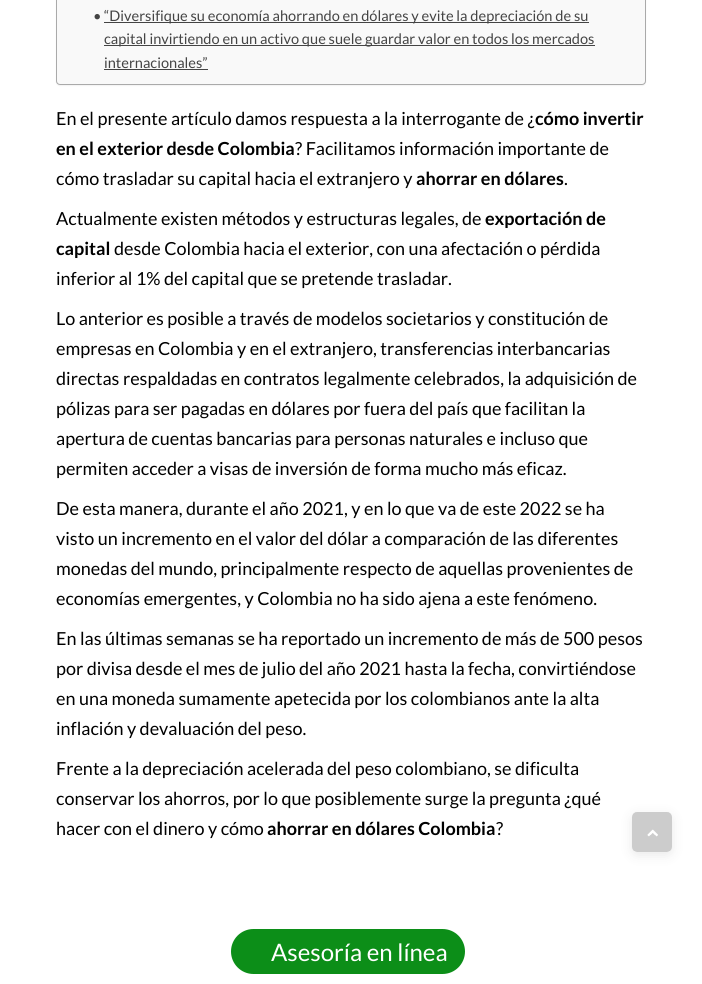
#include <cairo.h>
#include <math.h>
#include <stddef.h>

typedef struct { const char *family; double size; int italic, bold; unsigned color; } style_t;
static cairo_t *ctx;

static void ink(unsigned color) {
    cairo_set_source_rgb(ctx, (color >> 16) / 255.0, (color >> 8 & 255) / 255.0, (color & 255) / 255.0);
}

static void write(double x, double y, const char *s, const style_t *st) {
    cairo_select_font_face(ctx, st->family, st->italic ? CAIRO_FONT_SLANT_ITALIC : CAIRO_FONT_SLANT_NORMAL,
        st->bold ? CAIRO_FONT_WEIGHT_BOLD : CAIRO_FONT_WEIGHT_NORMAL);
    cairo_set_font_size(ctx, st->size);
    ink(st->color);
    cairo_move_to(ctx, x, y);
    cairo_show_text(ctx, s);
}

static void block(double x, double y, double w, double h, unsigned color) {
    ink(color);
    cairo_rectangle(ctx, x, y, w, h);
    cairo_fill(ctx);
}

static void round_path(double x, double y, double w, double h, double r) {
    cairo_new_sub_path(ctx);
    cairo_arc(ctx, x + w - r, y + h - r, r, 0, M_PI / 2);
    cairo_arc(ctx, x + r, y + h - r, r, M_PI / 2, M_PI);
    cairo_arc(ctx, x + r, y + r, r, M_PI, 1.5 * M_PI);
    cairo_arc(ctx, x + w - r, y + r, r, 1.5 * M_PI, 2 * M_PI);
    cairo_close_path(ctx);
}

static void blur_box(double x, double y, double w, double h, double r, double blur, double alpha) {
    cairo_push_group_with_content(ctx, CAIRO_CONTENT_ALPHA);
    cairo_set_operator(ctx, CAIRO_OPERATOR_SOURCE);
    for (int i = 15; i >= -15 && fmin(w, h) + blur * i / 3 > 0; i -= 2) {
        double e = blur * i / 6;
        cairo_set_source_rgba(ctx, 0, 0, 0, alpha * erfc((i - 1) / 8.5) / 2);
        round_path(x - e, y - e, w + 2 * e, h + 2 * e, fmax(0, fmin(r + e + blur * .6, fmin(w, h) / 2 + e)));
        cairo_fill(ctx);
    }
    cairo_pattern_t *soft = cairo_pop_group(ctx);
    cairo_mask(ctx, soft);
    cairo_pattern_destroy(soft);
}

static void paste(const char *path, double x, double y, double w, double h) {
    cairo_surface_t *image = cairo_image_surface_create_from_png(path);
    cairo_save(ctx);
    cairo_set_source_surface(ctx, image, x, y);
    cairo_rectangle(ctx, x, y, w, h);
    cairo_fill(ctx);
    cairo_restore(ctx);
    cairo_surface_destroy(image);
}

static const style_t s1 = {"Lato", 14.6, 0, 0, 0x444444};
static const style_t s2 = {"Lato", 18, 0, 0, 0x000000};
static const style_t s3 = {"Lato", 18, 0, 1, 0x000000};
static const style_t s4 = {"Lato", 24, 0, 0, 0xffffff};

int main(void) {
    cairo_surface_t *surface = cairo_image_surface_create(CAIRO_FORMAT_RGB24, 702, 984);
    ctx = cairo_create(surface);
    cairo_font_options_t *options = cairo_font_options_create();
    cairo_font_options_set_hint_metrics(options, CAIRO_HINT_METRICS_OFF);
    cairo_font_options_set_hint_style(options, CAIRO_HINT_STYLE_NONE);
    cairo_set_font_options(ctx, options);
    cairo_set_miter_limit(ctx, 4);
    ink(0xffffff);
    cairo_paint(ctx);
    ink(0x000000);
    blur_box(56, -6, 590, 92, 4, 0.5, 0.05);
    ink(0xf9f9f9);
    round_path(56.5, -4.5, 589, 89, 3.5);
    cairo_fill_preserve(ctx);
    ink(0xaaaaaa);
    cairo_set_line_width(ctx, 1);
    cairo_stroke(ctx);
    write(93, 21, "•", &s1);
    block(104, 22, 485, 1, 0x444444);
    write(104, 21, "“Diversifique su economía ahorrando en dólares y evite la depreciación de su", &s1);
    block(104, 45, 491, 1, 0x444444);
    write(104, 44, "capital invirtiendo en un activo que suele guardar valor en todos los mercados", &s1);
    write(104, 68, "internacionales”", &s1);
    block(104, 69, 104, 1, 0x444444);
    write(56, 125, "En el presente artículo damos respuesta a la interrogante de ¿", &s2);
    write(535, 125, "cómo invertir", &s3);
    write(56, 155, "en el exterior desde Colombia", &s3);
    write(295, 155, "? Facilitamos información importante de", &s2);
    write(56, 185, "cómo trasladar su capital hacia el extranjero y", &s2);
    write(416, 185, "ahorrar en dólares", &s3);
    write(564, 185, ".", &s2);
    write(56, 225, "Actualmente existen métodos y estructuras legales, de", &s2);
    write(485, 225, "exportación de", &s3);
    write(56, 255, "capital", &s3);
    write(114, 255, "desde Colombia hacia el exterior, con una afectación o pérdida", &s2);
    write(56, 285, "inferior al 1% del capital que se pretende trasladar.", &s2);
    write(56, 325, "Lo anterior es posible a través de modelos societarios y constitución de", &s2);
    write(56, 355, "empresas en Colombia y en el extranjero, transferencias interbancarias", &s2);
    write(56, 385, "directas respaldadas en contratos legalmente celebrados, la adquisición de", &s2);
    write(56, 415, "pólizas para ser pagadas en dólares por fuera del país que facilitan la", &s2);
    write(56, 445, "apertura de cuentas bancarias para personas naturales e incluso que", &s2);
    write(56, 475, "permiten acceder a visas de inversión de forma mucho más eficaz.", &s2);
    write(56, 515, "De esta manera, durante el año 2021, y en lo que va de este 2022 se ha", &s2);
    write(56, 545, "visto un incremento en el valor del dólar a comparación de las diferentes", &s2);
    write(56, 575, "monedas del mundo, principalmente respecto de aquellas provenientes de", &s2);
    write(56, 605, "economías emergentes, y Colombia no ha sido ajena a este fenómeno.", &s2);
    write(56, 645, "En las últimas semanas se ha reportado un incremento de más de 500 pesos", &s2);
    write(56, 675, "por divisa desde el mes de julio del año 2021 hasta la fecha, convirtiéndose", &s2);
    write(56, 705, "en una moneda sumamente apetecida por los colombianos ante la alta", &s2);
    write(56, 735, "inflación y devaluación del peso.", &s2);
    write(56, 775, "Frente a la depreciación acelerada del peso colombiano, se dificulta", &s2);
    write(56, 805, "conservar los ahorros, por lo que posiblemente surge la pregunta ¿qué", &s2);
    write(56, 835, "hacer con el dinero y cómo", &s2);
    write(267, 835, "ahorrar en dólares Colombia", &s3);
    write(496, 835, "?", &s2);
    ink(0x0c8e18);
    round_path(231, 929, 234, 45, 22.5);
    cairo_fill(ctx);
    write(271, 961, "Asesoría en línea", &s4);
    cairo_save(ctx);
    cairo_set_fill_rule(ctx, CAIRO_FILL_RULE_EVEN_ODD);
    cairo_new_path(ctx);
    cairo_move_to(ctx, 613, 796);
    cairo_line_to(ctx, 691, 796);
    cairo_line_to(ctx, 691, 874);
    cairo_line_to(ctx, 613, 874);
    cairo_close_path(ctx);
    cairo_move_to(ctx, 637, 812);
    cairo_line_to(ctx, 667, 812);
    cairo_curve_to(ctx, 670, 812, 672, 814, 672, 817);
    cairo_line_to(ctx, 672, 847);
    cairo_curve_to(ctx, 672, 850, 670, 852, 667, 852);
    cairo_line_to(ctx, 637, 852);
    cairo_curve_to(ctx, 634, 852, 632, 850, 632, 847);
    cairo_line_to(ctx, 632, 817);
    cairo_curve_to(ctx, 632, 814, 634, 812, 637, 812);
    cairo_close_path(ctx);
    cairo_clip(ctx);
    ink(0x000000);
    blur_box(632, 815, 40, 40, 5, 6, 0.09);
    cairo_restore(ctx);
    paste("pic1.png", 632, 812, 40, 40);
    cairo_surface_write_to_png(surface, "screenshot.png");
    cairo_font_options_destroy(options);
    cairo_destroy(ctx);
    cairo_surface_destroy(surface);
    return 0;
}
